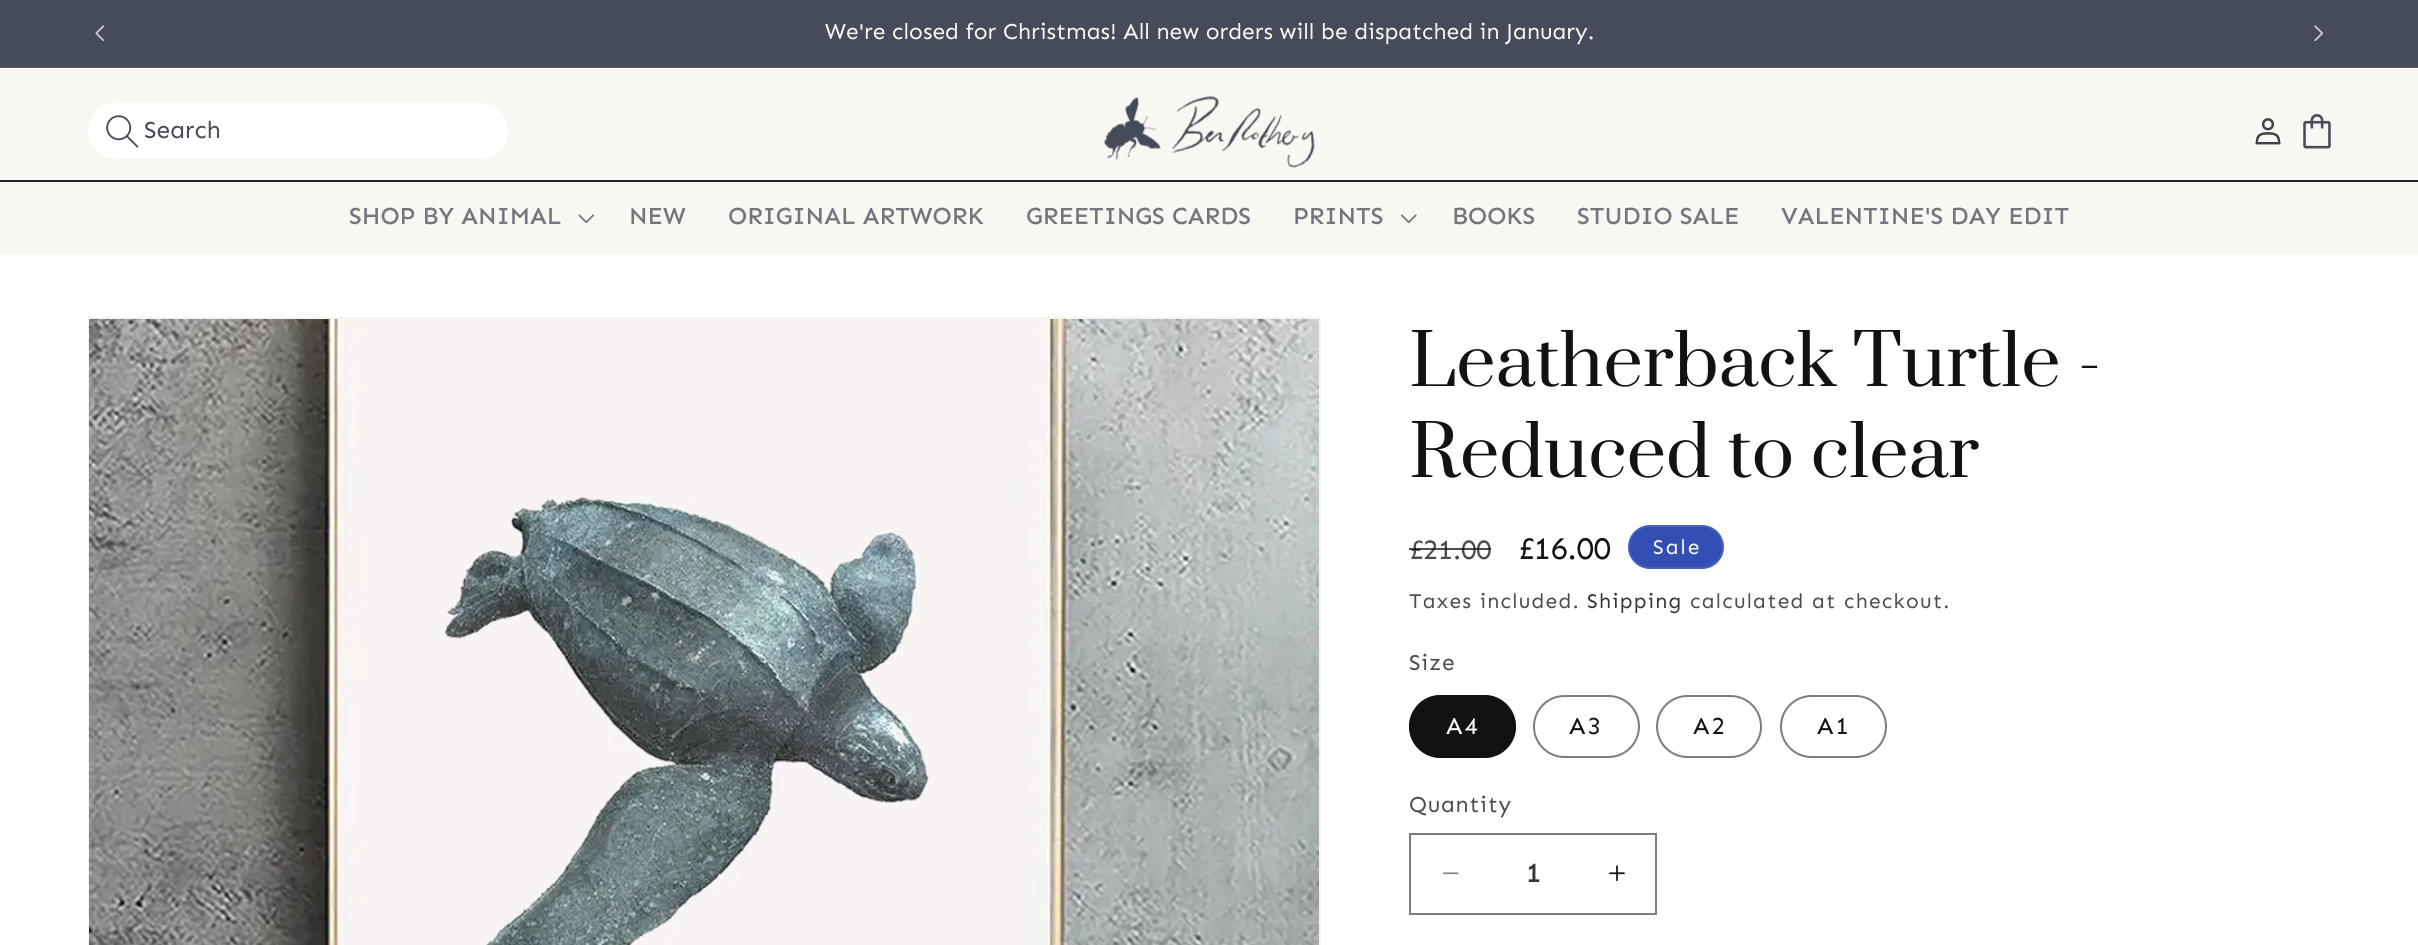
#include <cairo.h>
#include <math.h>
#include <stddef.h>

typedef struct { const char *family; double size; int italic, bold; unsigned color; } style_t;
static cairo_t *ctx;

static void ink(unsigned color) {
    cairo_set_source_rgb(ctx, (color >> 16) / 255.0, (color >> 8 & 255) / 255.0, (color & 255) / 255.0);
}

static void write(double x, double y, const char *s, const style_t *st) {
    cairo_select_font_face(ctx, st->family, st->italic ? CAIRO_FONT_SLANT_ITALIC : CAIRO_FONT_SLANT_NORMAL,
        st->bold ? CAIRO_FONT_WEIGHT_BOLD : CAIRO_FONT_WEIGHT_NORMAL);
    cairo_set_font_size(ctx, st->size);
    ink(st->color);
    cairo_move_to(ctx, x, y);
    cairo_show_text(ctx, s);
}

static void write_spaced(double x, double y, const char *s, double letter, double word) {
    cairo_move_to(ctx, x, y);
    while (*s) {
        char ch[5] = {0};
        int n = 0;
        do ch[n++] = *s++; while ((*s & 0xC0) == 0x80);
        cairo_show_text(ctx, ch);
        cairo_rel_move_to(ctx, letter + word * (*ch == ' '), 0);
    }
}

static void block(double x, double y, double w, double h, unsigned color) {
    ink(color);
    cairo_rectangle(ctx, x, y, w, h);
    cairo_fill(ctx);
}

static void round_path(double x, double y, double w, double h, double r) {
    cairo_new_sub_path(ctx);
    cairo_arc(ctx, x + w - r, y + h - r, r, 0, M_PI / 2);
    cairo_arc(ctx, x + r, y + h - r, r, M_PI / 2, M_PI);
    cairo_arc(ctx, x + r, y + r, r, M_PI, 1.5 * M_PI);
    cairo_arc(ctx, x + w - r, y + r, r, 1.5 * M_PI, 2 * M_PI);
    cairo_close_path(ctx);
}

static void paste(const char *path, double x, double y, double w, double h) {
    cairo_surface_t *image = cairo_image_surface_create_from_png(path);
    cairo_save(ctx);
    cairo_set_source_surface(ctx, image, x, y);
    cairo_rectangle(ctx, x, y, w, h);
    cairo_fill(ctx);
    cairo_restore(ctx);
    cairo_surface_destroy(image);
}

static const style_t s1 = {"Sen", 22.75, 0, 0, 0xf9f7f1};
static const style_t s2 = {"Sen", 24.5, 0, 0, 0x454b59};
static const style_t s3 = {"Sen Medium", 24.5, 0, 0, 0x72767f};
static const style_t s4 = {"Prata", 70, 0, 0, 0x121212};
static const style_t s5 = {"Sen", 28, 0, 0, 0x4d4d4d};
static const style_t s6 = {"Sen", 31.5, 0, 0, 0x121212};
static const style_t s7 = {"Sen Medium", 28, 0, 0, 0x363636};

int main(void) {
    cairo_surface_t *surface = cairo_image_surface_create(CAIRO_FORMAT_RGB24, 2418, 945);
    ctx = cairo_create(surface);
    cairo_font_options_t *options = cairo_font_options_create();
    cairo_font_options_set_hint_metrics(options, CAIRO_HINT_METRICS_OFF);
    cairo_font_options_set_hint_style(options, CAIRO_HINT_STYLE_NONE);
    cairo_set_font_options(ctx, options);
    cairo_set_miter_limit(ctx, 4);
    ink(0xffffff);
    cairo_paint(ctx);
    block(0, 0, 2418, 67, 0x454b59);
    block(0, 67, 2418, 1, 0x535965);
    paste("pic1.png", 95, 25, 10, 17);
    write(825, 39, "We're closed for Christmas! All new orders will be dispatched in January.", &s1);
    paste("pic2.png", 2314, 25, 10, 17);
    block(0, 68, 2418, 186, 0xf9f7f1);
    ink(0xffffff);
    round_path(88, 103, 420, 56, 28);
    cairo_fill(ctx);
    paste("pic3.png", 106, 115, 33, 33);
    write(144, 138, "Search", &s2);
    paste("pic4.png", 1104, 96, 211, 72);
    paste("pic5.png", 2255, 118, 26, 27);
    paste("pic6.png", 2303, 114, 28, 35);
    block(0, 180, 2418, 2, 0x20242c);
    write(349, 224, "SHOP BY ANIMAL", &s3);
    paste("pic7.png", 578, 214, 17, 10);
    write(629, 224, "NEW", &s3);
    write(728, 224, "ORIGINAL ARTWORK", &s3);
    write(1026, 224, "GREETINGS CARDS", &s3);
    write(1293, 224, "PRINTS", &s3);
    paste("pic8.png", 1400, 214, 17, 10);
    write(1452, 224, "BOOKS", &s3);
    write(1577, 224, "STUDIO SALE", &s3);
    write(1781, 224, "VALENTINE'S DAY EDIT", &s3);
    cairo_rectangle(ctx, 89, 318, 1231, 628);
    ink(0xf3f3f3);
    cairo_stroke(ctx);
    paste("pic9.png", 89, 319, 1230, 626);
    write(1409, 386, "Leatherback Turtle -", &s4);
    write(1409, 477, "Reduced to clear", &s4);
    write(1409, 559, "£21.00", &s5);
    cairo_set_source_rgba(ctx, 0.071, 0.071, 0.071, 0.75);
    cairo_rectangle(ctx, 1409, 548, 82, 2);
    cairo_fill(ctx);
    write(1518, 559, "£16.00", &s6);
    ink(0x334fb4);
    round_path(1628, 525, 96, 44, 22);
    cairo_fill(ctx);
    round_path(1629, 526, 94, 42, 21);
    cairo_set_source_rgba(ctx, 1, 1, 1, 0.1);
    cairo_stroke(ctx);
    cairo_set_font_size(ctx, 21);
    ink(0xffffff);
    write_spaced(1653, 554, "Sale", 2, 0);
    ink(0x4d4d4d);
    write_spaced(1409, 608, "Taxes included.", 1.25, 0);
    ink(0x363636);
    write_spaced(1587, 608, "Shipping", 1.25, 0);
    ink(0x4d4d4d);
    write_spaced(1690, 608, "calculated at checkout.", 1.25, 0);
    cairo_set_font_size(ctx, 22.75);
    write_spaced(1409, 670, "Size", 0.75, 0);
    ink(0x121212);
    round_path(1409, 695, 107, 63, 31.5);
    cairo_fill(ctx);
    round_path(1410, 696, 105, 61, 30.5);
    cairo_set_source_rgba(ctx, 0.071, 0.071, 0.071, 0.55);
    cairo_stroke(ctx);
    cairo_set_font_size(ctx, 24.5);
    ink(0xffffff);
    write_spaced(1446, 734, "A4", 2, 0);
    round_path(1534, 696, 105, 61, 30.5);
    ink(0x7d7d7d);
    cairo_stroke(ctx);
    ink(0x121212);
    write_spaced(1569, 734, "A3", 2, 0);
    round_path(1657, 696, 104, 61, 30.5);
    ink(0x7d7d7d);
    cairo_stroke(ctx);
    ink(0x121212);
    write_spaced(1693, 734, "A2", 2, 0);
    round_path(1781, 696, 105, 61, 30.5);
    ink(0x7d7d7d);
    cairo_stroke(ctx);
    ink(0x121212);
    write_spaced(1817, 734, "A1", 2, 0);
    cairo_set_font_size(ctx, 22.75);
    ink(0x4d4d4d);
    write_spaced(1409, 812, "Quantity", 0.75, 0);
    paste("pic10.png", 1443, 872, 16, 3);
    paste("pic11.png", 1609, 865, 16, 17);
    cairo_rectangle(ctx, 1410, 834, 246, 80);
    ink(0x7d7d7d);
    cairo_stroke(ctx);
    write(1526, 882, "1", &s7);
    cairo_surface_write_to_png(surface, "screenshot.png");
    cairo_font_options_destroy(options);
    cairo_destroy(ctx);
    cairo_surface_destroy(surface);
    return 0;
}
